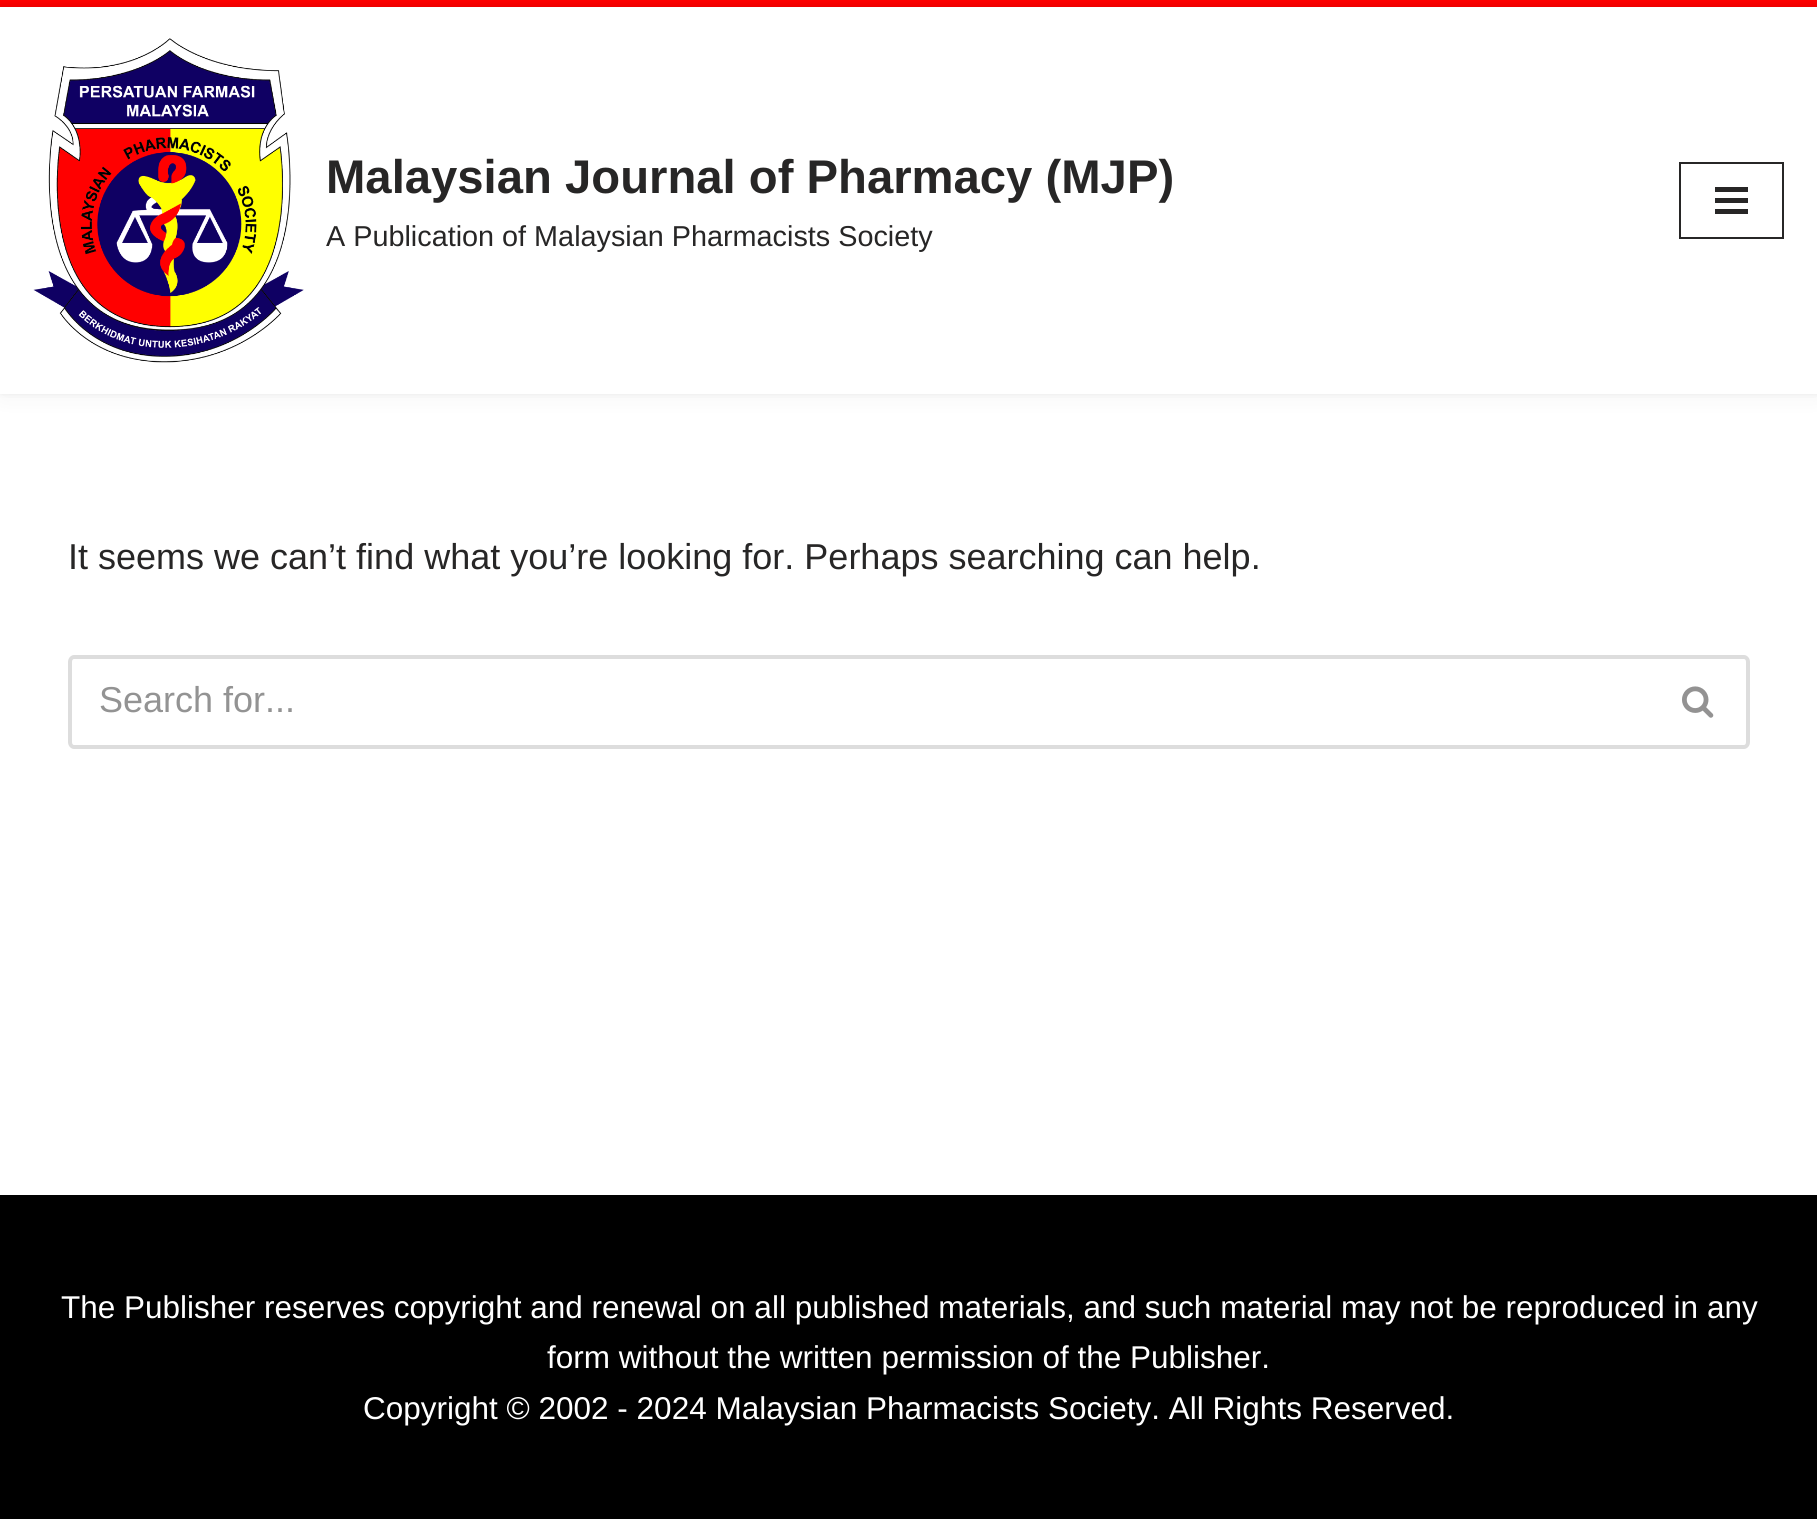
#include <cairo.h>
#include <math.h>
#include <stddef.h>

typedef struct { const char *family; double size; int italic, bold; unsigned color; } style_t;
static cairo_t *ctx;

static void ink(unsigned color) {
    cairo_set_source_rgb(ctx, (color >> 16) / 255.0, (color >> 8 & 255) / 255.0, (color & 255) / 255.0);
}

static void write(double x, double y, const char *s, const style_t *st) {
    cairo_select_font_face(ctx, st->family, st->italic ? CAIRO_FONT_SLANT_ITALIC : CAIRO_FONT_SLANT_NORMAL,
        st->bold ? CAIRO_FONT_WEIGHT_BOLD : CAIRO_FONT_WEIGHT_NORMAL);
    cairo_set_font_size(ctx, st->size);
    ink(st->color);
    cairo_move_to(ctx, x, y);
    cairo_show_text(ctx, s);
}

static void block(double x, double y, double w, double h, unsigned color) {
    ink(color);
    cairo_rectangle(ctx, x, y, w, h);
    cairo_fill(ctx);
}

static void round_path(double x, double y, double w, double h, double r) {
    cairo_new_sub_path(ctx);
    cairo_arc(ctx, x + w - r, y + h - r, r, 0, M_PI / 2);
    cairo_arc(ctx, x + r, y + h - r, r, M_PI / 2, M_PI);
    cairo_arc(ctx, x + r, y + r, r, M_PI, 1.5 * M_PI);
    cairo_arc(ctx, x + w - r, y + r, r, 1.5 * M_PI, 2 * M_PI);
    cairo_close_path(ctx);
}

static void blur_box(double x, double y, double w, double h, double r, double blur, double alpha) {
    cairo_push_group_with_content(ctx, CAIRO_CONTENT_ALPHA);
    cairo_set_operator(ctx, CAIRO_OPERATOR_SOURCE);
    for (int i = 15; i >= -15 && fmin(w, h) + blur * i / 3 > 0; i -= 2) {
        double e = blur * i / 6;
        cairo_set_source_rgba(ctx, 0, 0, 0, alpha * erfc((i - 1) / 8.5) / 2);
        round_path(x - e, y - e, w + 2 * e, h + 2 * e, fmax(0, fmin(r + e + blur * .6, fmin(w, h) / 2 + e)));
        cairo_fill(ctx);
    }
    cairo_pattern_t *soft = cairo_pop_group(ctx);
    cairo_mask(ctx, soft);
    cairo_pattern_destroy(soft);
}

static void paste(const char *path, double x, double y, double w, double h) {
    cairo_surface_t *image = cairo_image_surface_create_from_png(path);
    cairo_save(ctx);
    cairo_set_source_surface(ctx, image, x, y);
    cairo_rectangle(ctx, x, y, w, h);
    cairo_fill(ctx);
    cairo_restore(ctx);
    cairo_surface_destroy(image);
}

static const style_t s1 = {"Liberation Sans", 47.25, 0, 1, 0x272626};
static const style_t s2 = {"Liberation Sans", 28.8, 0, 0, 0x272626};
static const style_t s3 = {"Liberation Sans", 36, 0, 0, 0x272626};
static const style_t s4 = {"Liberation Sans", 36, 0, 0, 0x939393};
static const style_t s5 = {"Liberation Sans", 31.5, 0, 0, 0xffffff};

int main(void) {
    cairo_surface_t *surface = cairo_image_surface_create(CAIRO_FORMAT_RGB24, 1817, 1519);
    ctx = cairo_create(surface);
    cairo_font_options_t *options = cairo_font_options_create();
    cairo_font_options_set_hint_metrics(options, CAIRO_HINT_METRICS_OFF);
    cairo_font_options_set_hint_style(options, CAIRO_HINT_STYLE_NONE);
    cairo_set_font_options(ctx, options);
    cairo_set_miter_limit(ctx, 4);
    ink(0xffffff);
    cairo_paint(ctx);
    ink(0x000000);
    blur_box(2, 2, 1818, 394, 0, 11, 0.05);
    block(0, 0, 1817, 7, 0xff0000);
    ink(0x000000);
    blur_box(0, 5, 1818, 387, 0, 3.5, 0.1);
    block(0, 7, 1817, 387, 0xffffff);
    paste("pic1.png", 33, 38, 271, 325);
    write(326, 193, "Malaysian Journal of Pharmacy (MJP)", &s1);
    write(326, 246, "A Publication of Malaysian Pharmacists Society", &s2);
    cairo_rectangle(ctx, 1680, 163, 103, 75);
    cairo_stroke(ctx);
    block(1715, 187, 33, 5, 0x272626);
    block(1715, 198, 33, 5, 0x272626);
    block(1715, 209, 33, 5, 0x272626);
    write(68, 569, "It seems we can’t find what you’re looking for. Perhaps searching can help.", &s3);
    ink(0xdddddd);
    cairo_set_fill_rule(ctx, CAIRO_FILL_RULE_EVEN_ODD);
    cairo_new_path(ctx);
    cairo_move_to(ctx, 74, 655);
    cairo_line_to(ctx, 1649, 655);
    cairo_line_to(ctx, 1649, 749);
    cairo_line_to(ctx, 74, 749);
    cairo_curve_to(ctx, 71, 749, 68, 746, 68, 742);
    cairo_line_to(ctx, 68, 662);
    cairo_curve_to(ctx, 68, 658, 71, 655, 74, 655);
    cairo_close_path(ctx);
    cairo_move_to(ctx, 74, 659);
    cairo_line_to(ctx, 1649, 659);
    cairo_line_to(ctx, 1649, 745);
    cairo_line_to(ctx, 74, 745);
    cairo_curve_to(ctx, 73, 745, 72, 744, 72, 742);
    cairo_line_to(ctx, 72, 662);
    cairo_curve_to(ctx, 72, 660, 73, 659, 74, 659);
    cairo_close_path(ctx);
    cairo_fill(ctx);
    write(99, 712, "Search for...", &s4);
    ink(0xdddddd);
    cairo_new_path(ctx);
    cairo_move_to(ctx, 1649, 655);
    cairo_line_to(ctx, 1744, 655);
    cairo_curve_to(ctx, 1747, 655, 1750, 658, 1750, 662);
    cairo_line_to(ctx, 1750, 742);
    cairo_curve_to(ctx, 1750, 746, 1747, 749, 1744, 749);
    cairo_line_to(ctx, 1649, 749);
    cairo_close_path(ctx);
    cairo_move_to(ctx, 1649, 659);
    cairo_line_to(ctx, 1744, 659);
    cairo_curve_to(ctx, 1745, 659, 1746, 660, 1746, 662);
    cairo_line_to(ctx, 1746, 742);
    cairo_curve_to(ctx, 1746, 744, 1745, 745, 1744, 745);
    cairo_line_to(ctx, 1649, 745);
    cairo_close_path(ctx);
    cairo_fill(ctx);
    paste("pic2.png", 1682, 686, 32, 32);
    block(0, 1195, 1817, 324, 0x000000);
    write(61, 1318, "The Publisher reserves copyright and renewal on all published materials, and such material may not be reproduced in any", &s5);
    write(547, 1368, "form without the written permission of the Publisher.", &s5);
    write(363, 1419, "Copyright © 2002 - 2024 Malaysian Pharmacists Society. All Rights Reserved.", &s5);
    cairo_surface_write_to_png(surface, "screenshot.png");
    cairo_font_options_destroy(options);
    cairo_destroy(ctx);
    cairo_surface_destroy(surface);
    return 0;
}
